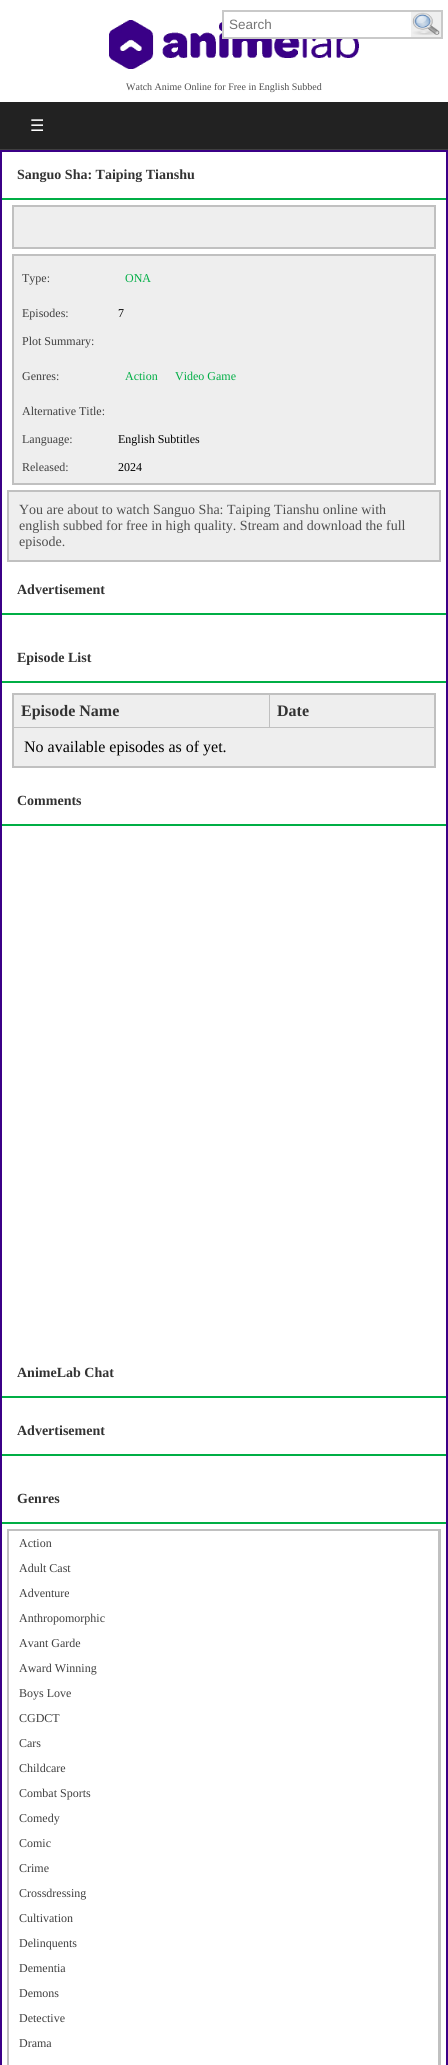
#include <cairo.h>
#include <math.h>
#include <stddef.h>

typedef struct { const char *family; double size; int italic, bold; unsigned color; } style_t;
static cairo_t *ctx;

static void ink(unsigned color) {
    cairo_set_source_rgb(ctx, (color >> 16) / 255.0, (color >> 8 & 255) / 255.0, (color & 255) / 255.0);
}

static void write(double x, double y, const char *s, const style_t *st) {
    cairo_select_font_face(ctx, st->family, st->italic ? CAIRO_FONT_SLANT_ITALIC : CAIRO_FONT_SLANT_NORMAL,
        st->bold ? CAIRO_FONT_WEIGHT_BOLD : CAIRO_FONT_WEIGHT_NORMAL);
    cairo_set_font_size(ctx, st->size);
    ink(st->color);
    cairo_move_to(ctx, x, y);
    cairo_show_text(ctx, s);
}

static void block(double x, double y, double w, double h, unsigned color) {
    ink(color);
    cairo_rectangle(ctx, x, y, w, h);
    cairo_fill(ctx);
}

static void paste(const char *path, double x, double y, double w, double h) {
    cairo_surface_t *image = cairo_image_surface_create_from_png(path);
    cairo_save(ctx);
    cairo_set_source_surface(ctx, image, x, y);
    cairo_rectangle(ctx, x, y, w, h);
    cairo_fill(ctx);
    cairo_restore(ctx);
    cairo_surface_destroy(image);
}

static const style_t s1 = {"Liberation Sans", 13.5, 0, 0, 0x757575};
static const style_t s2 = {"Liberation Serif", 10, 0, 0, 0x4f4f4f};
static const style_t s3 = {"DejaVu Sans", 16, 0, 0, 0xffffff};
static const style_t s4 = {"Liberation Serif", 14, 0, 1, 0x333333};
static const style_t s5 = {"Liberation Serif", 12, 0, 0, 0x3f3f3f};
static const style_t s6 = {"Liberation Serif", 12, 0, 0, 0x00ae45};
static const style_t s7 = {"Liberation Serif", 12, 0, 0, 0x000000};
static const style_t s8 = {"Liberation Serif", 14, 0, 0, 0x4f4f4f};
static const style_t s9 = {"Liberation Serif", 16, 0, 1, 0x333333};
static const style_t s10 = {"Liberation Serif", 16, 0, 0, 0x000000};

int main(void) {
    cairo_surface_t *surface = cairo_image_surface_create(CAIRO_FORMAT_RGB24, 448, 2065);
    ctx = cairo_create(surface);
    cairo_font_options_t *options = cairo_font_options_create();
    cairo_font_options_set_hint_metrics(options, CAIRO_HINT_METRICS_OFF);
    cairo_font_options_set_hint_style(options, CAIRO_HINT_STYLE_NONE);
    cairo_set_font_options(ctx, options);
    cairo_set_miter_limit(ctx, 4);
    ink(0x3b0087);
    cairo_paint(ctx);
    block(0, 0, 448, 102, 0xffffff);
    block(0, 149, 448, 1, 0x3f3f3f);
    paste("pic2.png", 109, 20, 250, 49);
    block(224, 21, 132, 16, 0xffffff);
    cairo_rectangle(ctx, 223, 11, 219, 27);
    ink(0xc9c9c9);
    cairo_stroke(ctx);
    write(229, 29, "Search", &s1);
    block(411, 12, 30, 25, 0xefefef);
    paste("pic1.png", 412, 12, 28, 23);
    write(126, 90, "Watch Anime Online for Free in English Subbed", &s2);
    block(0, 102, 448, 47, 0x222222);
    write(30, 131, "☰", &s3);
    block(2, 152, 444, 1913, 0xffffff);
    block(2, 198, 444, 2, 0x00ae45);
    write(17, 179, "Sanguo Sha: Taiping Tianshu", &s4);
    ink(0xeeeeee);
    cairo_rectangle(ctx, 13, 206, 422, 42);
    cairo_fill_preserve(ctx);
    ink(0xc0c0c0);
    cairo_stroke(ctx);
    ink(0xeeeeee);
    cairo_rectangle(ctx, 13, 255, 422, 229);
    cairo_fill_preserve(ctx);
    ink(0xc0c0c0);
    cairo_stroke(ctx);
    write(22, 282, "Type:", &s5);
    write(125, 282, "ONA", &s6);
    write(22, 317, "Episodes:", &s5);
    write(118, 317, "7", &s7);
    write(22, 345, "Plot Summary:", &s5);
    write(22, 380, "Genres:", &s5);
    write(125, 380, "Action", &s6);
    write(175, 380, "Video Game", &s6);
    write(22, 415, "Alternative Title:", &s5);
    write(22, 443, "Language:", &s5);
    write(118, 443, "English Subtitles", &s7);
    write(22, 471, "Released:", &s5);
    write(118, 471, "2024", &s7);
    ink(0xeeeeee);
    cairo_rectangle(ctx, 8, 491, 432, 70);
    cairo_fill_preserve(ctx);
    ink(0xc0c0c0);
    cairo_stroke(ctx);
    write(19, 514, "You are about to watch Sanguo Sha: Taiping Tianshu online with", &s8);
    write(19, 530, "english subbed for free in high quality. Stream and download the full", &s8);
    write(19, 546, "episode.", &s8);
    block(2, 613, 444, 2, 0x00ae45);
    write(17, 594, "Advertisement", &s4);
    block(2, 681, 444, 2, 0x00ae45);
    write(17, 662, "Episode List", &s4);
    ink(0xeeeeee);
    cairo_rectangle(ctx, 13, 694, 422, 73);
    cairo_fill_preserve(ctx);
    ink(0xc0c0c0);
    cairo_stroke(ctx);
    block(14, 727, 420, 1, 0xc0c0c0);
    write(21, 716, "Episode Name", &s9);
    block(269, 695, 1, 33, 0xc0c0c0);
    write(277, 716, "Date", &s9);
    write(24, 752, "No available episodes as of yet.", &s10);
    block(2, 824, 444, 2, 0x00ae45);
    write(17, 805, "Comments", &s4);
    block(2, 1396, 444, 2, 0x00ae45);
    write(17, 1377, "AnimeLab Chat", &s4);
    block(2, 1454, 444, 2, 0x00ae45);
    write(17, 1435, "Advertisement", &s4);
    block(2, 1522, 444, 2, 0x00ae45);
    write(17, 1503, "Genres", &s4);
    cairo_rectangle(ctx, 8, 1530, 432, 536);
    ink(0xc0c0c0);
    cairo_stroke(ctx);
    block(438, 1531, 1, 534, 0xc0c0c0);
    write(19, 1547, "Action", &s5);
    write(19, 1572, "Adult Cast", &s5);
    write(19, 1597, "Adventure", &s5);
    write(19, 1622, "Anthropomorphic", &s5);
    write(19, 1647, "Avant Garde", &s5);
    write(19, 1672, "Award Winning", &s5);
    write(19, 1697, "Boys Love", &s5);
    write(19, 1722, "CGDCT", &s5);
    write(19, 1747, "Cars", &s5);
    write(19, 1772, "Childcare", &s5);
    write(19, 1797, "Combat Sports", &s5);
    write(19, 1822, "Comedy", &s5);
    write(19, 1847, "Comic", &s5);
    write(19, 1872, "Crime", &s5);
    write(19, 1897, "Crossdressing", &s5);
    write(19, 1922, "Cultivation", &s5);
    write(19, 1947, "Delinquents", &s5);
    write(19, 1972, "Dementia", &s5);
    write(19, 1997, "Demons", &s5);
    write(19, 2022, "Detective", &s5);
    write(19, 2047, "Drama", &s5);
    cairo_surface_write_to_png(surface, "screenshot.png");
    cairo_font_options_destroy(options);
    cairo_destroy(ctx);
    cairo_surface_destroy(surface);
    return 0;
}
